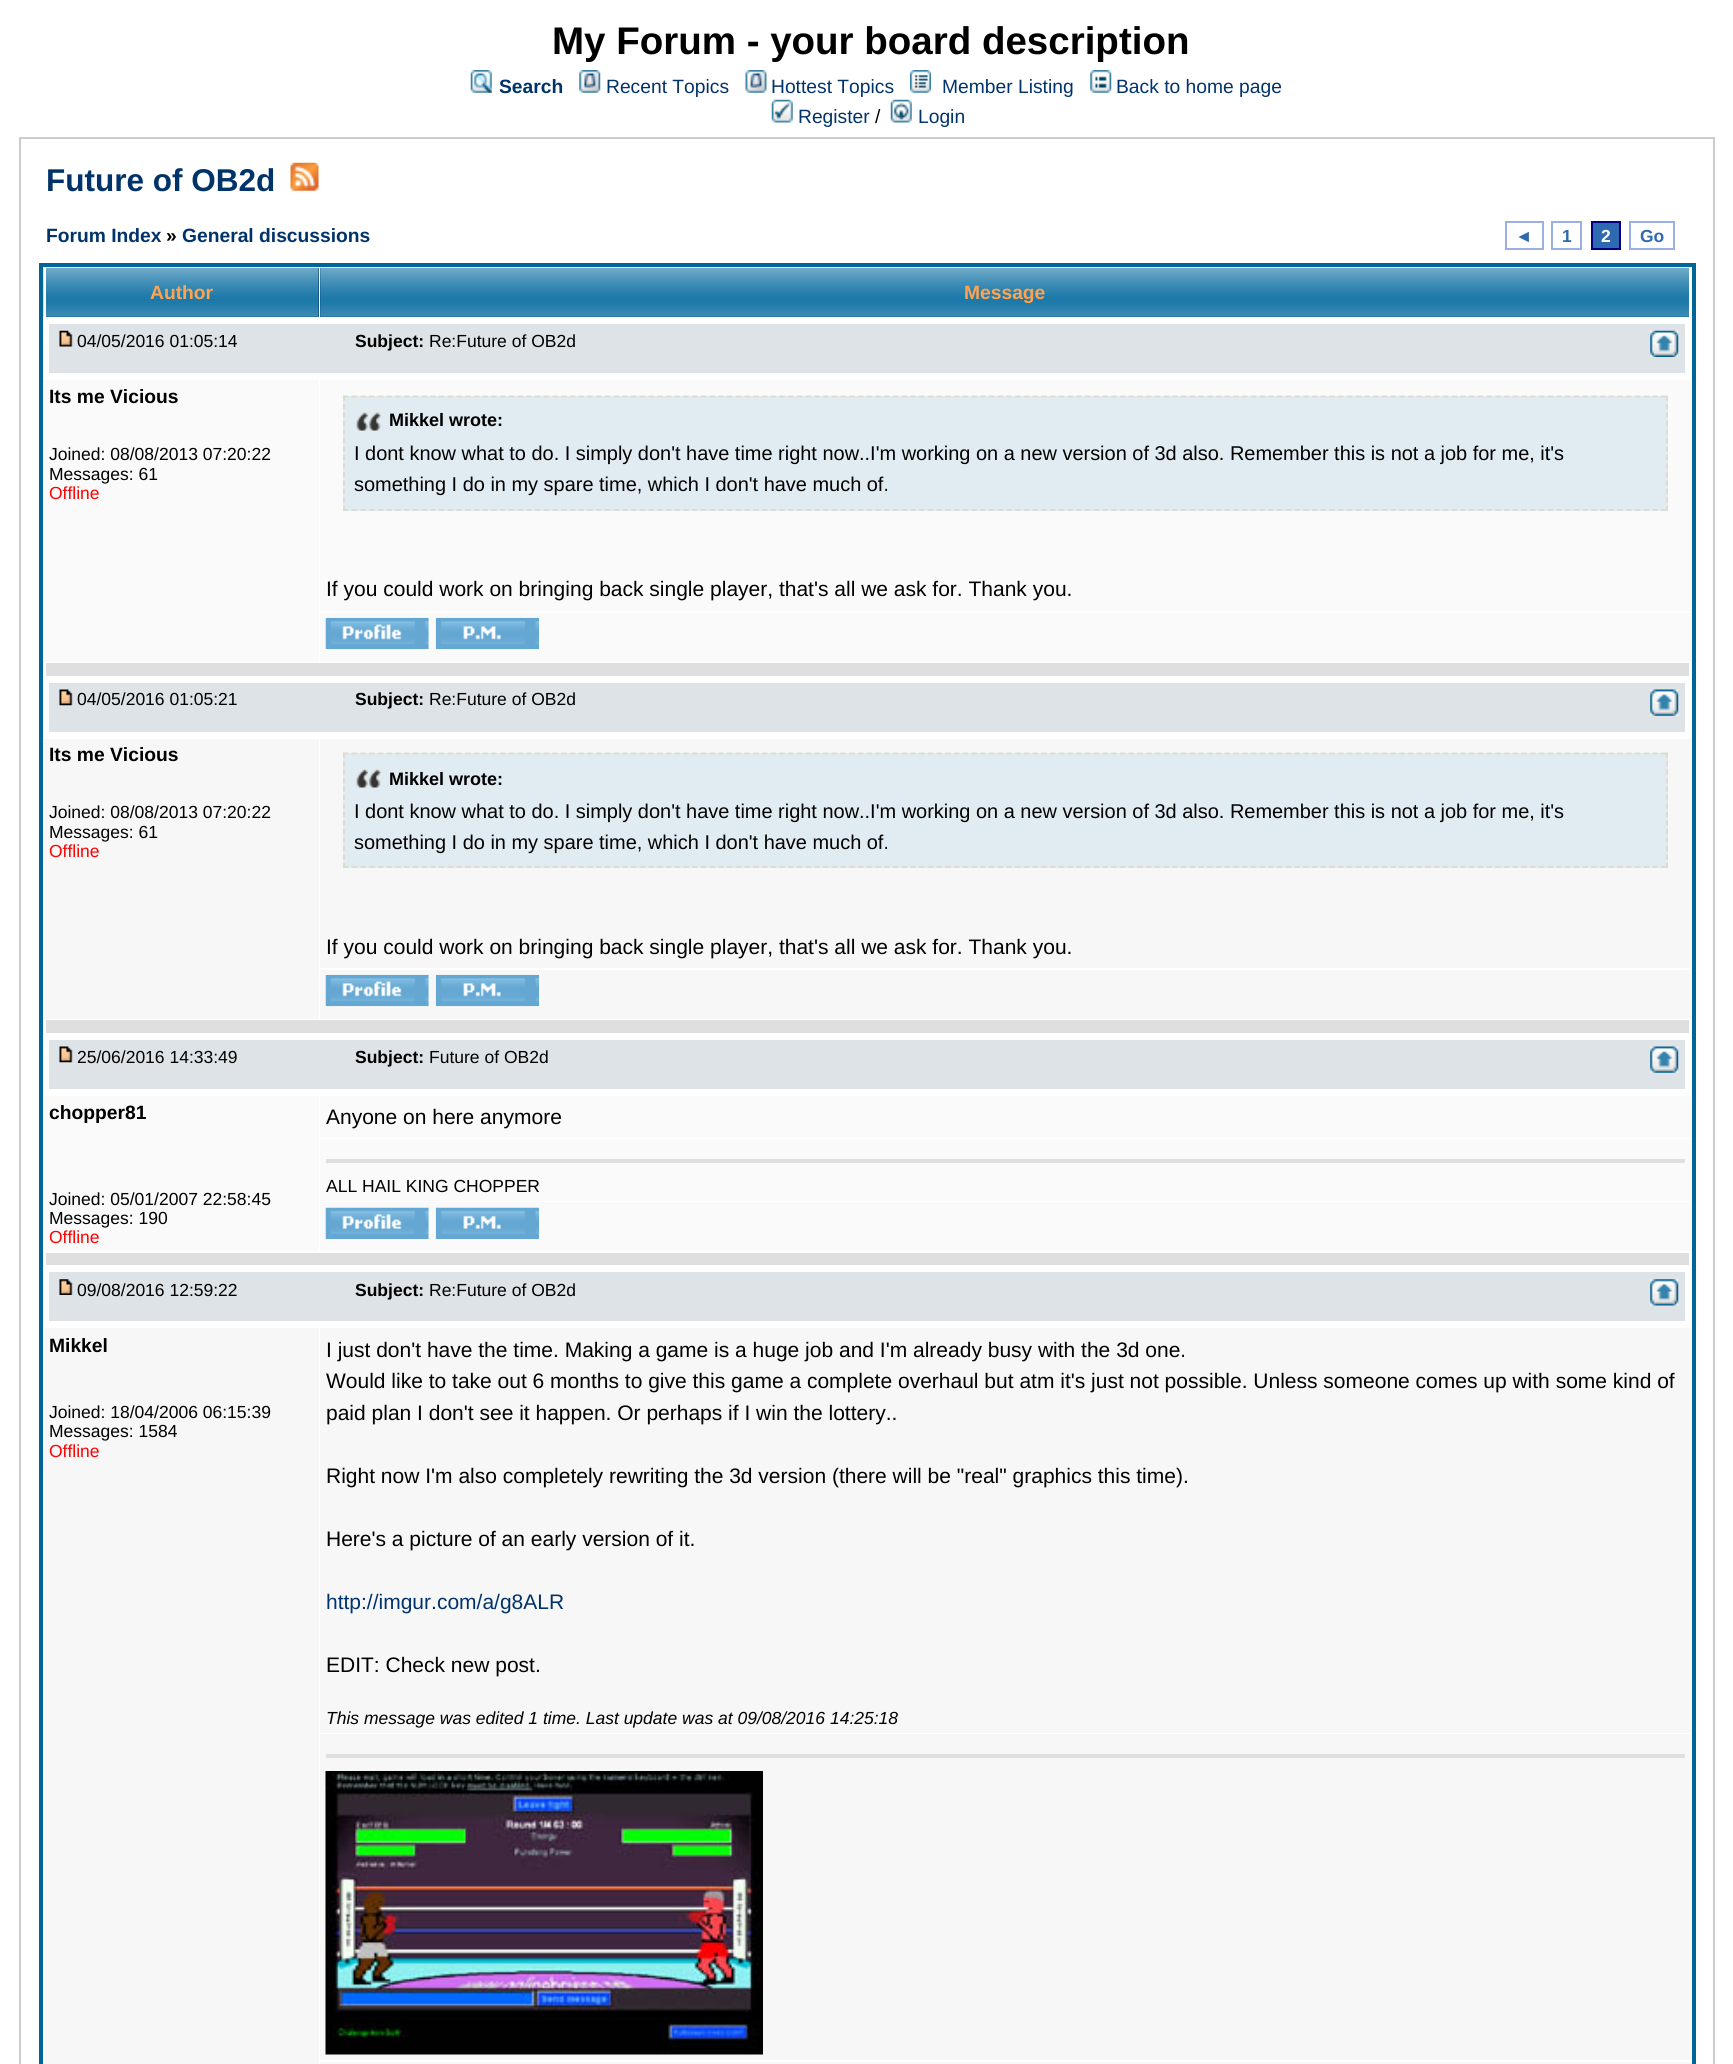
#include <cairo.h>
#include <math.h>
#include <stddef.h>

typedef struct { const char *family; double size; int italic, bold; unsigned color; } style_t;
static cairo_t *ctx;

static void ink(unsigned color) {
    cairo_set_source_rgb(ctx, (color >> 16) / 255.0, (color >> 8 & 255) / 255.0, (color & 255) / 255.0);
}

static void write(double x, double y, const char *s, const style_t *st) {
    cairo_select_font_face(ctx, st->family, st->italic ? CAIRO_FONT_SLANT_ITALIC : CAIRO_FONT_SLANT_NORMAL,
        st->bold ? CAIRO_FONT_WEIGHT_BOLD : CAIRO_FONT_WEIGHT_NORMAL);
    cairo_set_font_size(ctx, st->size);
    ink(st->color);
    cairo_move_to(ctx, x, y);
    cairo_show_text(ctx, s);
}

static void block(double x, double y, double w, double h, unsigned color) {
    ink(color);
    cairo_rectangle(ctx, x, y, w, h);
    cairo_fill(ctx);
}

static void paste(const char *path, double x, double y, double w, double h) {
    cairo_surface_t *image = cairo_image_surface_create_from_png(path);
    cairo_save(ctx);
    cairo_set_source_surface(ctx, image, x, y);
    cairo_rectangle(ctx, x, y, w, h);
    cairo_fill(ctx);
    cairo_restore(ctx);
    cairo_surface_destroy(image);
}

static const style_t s1 = {"Liberation Sans", 38.5, 0, 1, 0x000000};
static const style_t s2 = {"Liberation Sans", 19.25, 0, 1, 0x01336b};
static const style_t s3 = {"Liberation Sans", 19.25, 0, 0, 0x01336b};
static const style_t s4 = {"Liberation Sans", 19.25, 0, 0, 0x000000};
static const style_t s5 = {"Liberation Sans", 31.5, 0, 1, 0x01336b};
static const style_t s6 = {"Liberation Sans", 19.25, 0, 1, 0x000000};
static const style_t s7 = {"Liberation Sans", 17.5, 0, 1, 0x2e6ab1};
static const style_t s8 = {"Liberation Sans", 17.5, 0, 1, 0xffffff};
static const style_t s9 = {"Liberation Sans", 19.25, 0, 1, 0xffa34f};
static const style_t s10 = {"Liberation Sans", 17.5, 0, 0, 0x000000};
static const style_t s11 = {"Liberation Sans", 17.5, 0, 1, 0x000000};
static const style_t s12 = {"Liberation Sans", 17.5, 0, 0, 0xff0000};
static const style_t s13 = {"Liberation Sans", 18, 0, 1, 0x000000};
static const style_t s14 = {"Liberation Sans", 19.95, 0, 0, 0x000000};
static const style_t s15 = {"Liberation Sans", 21, 0, 0, 0x000000};
static const style_t s16 = {"Liberation Sans", 21, 0, 0, 0x01336b};
static const style_t s17 = {"Liberation Sans", 17.5, 1, 0, 0x000000};

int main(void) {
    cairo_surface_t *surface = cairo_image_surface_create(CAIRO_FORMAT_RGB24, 1733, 2064);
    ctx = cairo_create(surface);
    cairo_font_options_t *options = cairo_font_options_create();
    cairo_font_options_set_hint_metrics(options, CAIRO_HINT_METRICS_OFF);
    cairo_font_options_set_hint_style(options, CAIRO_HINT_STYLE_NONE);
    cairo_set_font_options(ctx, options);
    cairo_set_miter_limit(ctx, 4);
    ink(0xffffff);
    cairo_paint(ctx);
    write(552, 54, "My Forum - your board description", &s1);
    paste("pic1.png", 470, 70, 22, 23);
    write(499, 93, "Search", &s2);
    paste("pic2.png", 579, 70, 22, 23);
    write(606, 93, "Recent Topics", &s3);
    paste("pic3.png", 745, 70, 22, 23);
    write(771, 93, "Hottest Topics", &s3);
    paste("pic4.png", 910, 70, 21, 23);
    write(942, 93, "Member Listing", &s3);
    paste("pic5.png", 1090, 70, 22, 23);
    write(1116, 93, "Back to home page", &s3);
    paste("pic6.png", 771, 99, 22, 24);
    write(798, 123, "Register", &s3);
    write(875, 123, "/", &s4);
    paste("pic7.png", 890, 99, 22, 24);
    write(918, 123, "Login", &s3);
    cairo_rectangle(ctx, 20, 138, 1694, 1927);
    ink(0xcccccc);
    cairo_stroke(ctx);
    write(46, 191, "Future of OB2d", &s5);
    paste("pic8.png", 290, 162, 29, 29);
    write(46, 242, "Forum Index", &s2);
    write(166, 242, "»", &s6);
    write(182, 242, "General discussions", &s2);
    cairo_rectangle(ctx, 1506, 222, 37, 27);
    ink(0x9aafe5);
    cairo_stroke(ctx);
    write(1515, 242, "◄", &s7);
    cairo_rectangle(ctx, 1552, 222, 29, 27);
    ink(0x9aafe5);
    cairo_stroke(ctx);
    write(1562, 242, "1", &s7);
    cairo_rectangle(ctx, 1592, 222, 28, 27);
    cairo_fill_preserve(ctx);
    ink(0x000080);
    cairo_stroke(ctx);
    write(1601, 242, "2", &s8);
    cairo_rectangle(ctx, 1630, 222, 44, 27);
    ink(0x9aafe5);
    cairo_stroke(ctx);
    write(1640, 242, "Go", &s7);
    cairo_rectangle(ctx, 41, 265, 1653, 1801);
    ink(0x006699);
    cairo_set_line_width(ctx, 4);
    cairo_stroke(ctx);
    block(46, 268, 273, 49, 0x01336b);
    paste("pic9.png", 43, 267, 276, 50);
    block(44, 268, 2, 49, 0xffffff);
    write(150, 299, "Author", &s9);
    block(320, 268, 1369, 49, 0x01336b);
    paste("pic10.png", 320, 267, 1371, 50);
    block(1689, 268, 2, 49, 0xffffff);
    write(964, 299, "Message", &s9);
    block(49, 324, 1636, 49, 0xdee3e7);
    paste("pic11.png", 59, 330, 14, 17);
    write(77, 347, "04/05/2016 01:05:14", &s10);
    write(355, 347, "Subject:", &s11);
    write(429, 347, "Re:Future of OB2d", &s10);
    paste("pic12.png", 1650, 330, 29, 27);
    block(44, 380, 275, 282, 0xfafafa);
    write(49, 403, "Its me Vicious", &s6);
    write(49, 460, "Joined: 08/08/2013 07:20:22", &s10);
    write(49, 480, "Messages: 61", &s10);
    write(49, 499, "Offline", &s12);
    block(320, 380, 1371, 231, 0xfafafa);
    block(343, 396, 1325, 115, 0xe1ebf2);
    paste("pic13.png", 356, 412, 26, 19);
    cairo_new_path(ctx);
    cairo_move_to(ctx, 343, 396.5);
    cairo_line_to(ctx, 1668, 396.5);
    ink(0xdbdbce);
    cairo_set_line_width(ctx, 1.8);
    cairo_set_dash(ctx, (double[]){5.25, 3.48}, 2, 0);
    cairo_stroke(ctx);
    cairo_new_path(ctx);
    cairo_move_to(ctx, 1667, 395.5);
    cairo_line_to(ctx, 1667, 511);
    cairo_set_dash(ctx, (double[]){5.25, 3.24}, 2, 0);
    cairo_stroke(ctx);
    cairo_new_path(ctx);
    cairo_move_to(ctx, 343, 510);
    cairo_line_to(ctx, 1668, 510);
    cairo_set_dash(ctx, (double[]){5.25, 3.48}, 2, 0);
    cairo_stroke(ctx);
    cairo_new_path(ctx);
    cairo_move_to(ctx, 344, 395.5);
    cairo_line_to(ctx, 344, 511);
    cairo_set_dash(ctx, (double[]){5.25, 3.24}, 2, 0);
    cairo_stroke(ctx);
    write(389, 426, "Mikkel wrote:", &s13);
    write(354, 460, "I dont know what to do. I simply don't have time right now..I'm working on a new version of 3d also. Remember this is not a job for me, it's", &s14);
    write(354, 491, "something I do in my spare time, which I don't have much of.", &s14);
    write(326, 596, "If you could work on bringing back single player, that's all we ask for. Thank you.", &s15);
    block(320, 613, 1371, 49, 0xfafafa);
    paste("pic14.png", 325, 617, 104, 33);
    paste("pic15.png", 435, 617, 104, 33);
    block(46, 663, 1643, 13, 0xdfdfdf);
    block(49, 683, 1636, 49, 0xdee3e7);
    paste("pic16.png", 59, 689, 14, 17);
    write(77, 705, "04/05/2016 01:05:21", &s10);
    write(355, 705, "Subject:", &s11);
    write(429, 705, "Re:Future of OB2d", &s10);
    paste("pic17.png", 1650, 689, 29, 27);
    block(44, 739, 275, 280, 0xf7f7f8);
    write(49, 761, "Its me Vicious", &s6);
    write(49, 818, "Joined: 08/08/2013 07:20:22", &s10);
    write(49, 838, "Messages: 61", &s10);
    write(49, 857, "Offline", &s12);
    block(320, 739, 1371, 229, 0xf7f7f8);
    block(343, 753, 1325, 115, 0xe1ebf2);
    paste("pic13.png", 356, 769, 26, 19);
    cairo_new_path(ctx);
    cairo_move_to(ctx, 343, 753.5);
    cairo_line_to(ctx, 1668, 753.5);
    ink(0xdbdbce);
    cairo_set_dash(ctx, (double[]){5.25, 3.48}, 2, 0);
    cairo_stroke(ctx);
    cairo_new_path(ctx);
    cairo_move_to(ctx, 1667, 752.5);
    cairo_line_to(ctx, 1667, 868);
    cairo_set_dash(ctx, (double[]){5.25, 3.24}, 2, 0);
    cairo_stroke(ctx);
    cairo_new_path(ctx);
    cairo_move_to(ctx, 343, 867);
    cairo_line_to(ctx, 1668, 867);
    cairo_set_dash(ctx, (double[]){5.25, 3.48}, 2, 0);
    cairo_stroke(ctx);
    cairo_new_path(ctx);
    cairo_move_to(ctx, 344, 752.5);
    cairo_line_to(ctx, 344, 868);
    cairo_set_dash(ctx, (double[]){5.25, 3.24}, 2, 0);
    cairo_stroke(ctx);
    write(389, 785, "Mikkel wrote:", &s13);
    write(354, 818, "I dont know what to do. I simply don't have time right now..I'm working on a new version of 3d also. Remember this is not a job for me, it's", &s14);
    write(354, 849, "something I do in my spare time, which I don't have much of.", &s14);
    write(326, 954, "If you could work on bringing back single player, that's all we ask for. Thank you.", &s15);
    block(320, 970, 1371, 49, 0xf7f7f8);
    paste("pic18.png", 325, 974, 104, 33);
    paste("pic19.png", 435, 974, 104, 33);
    block(46, 1020, 1643, 13, 0xdfdfdf);
    block(49, 1040, 1636, 49, 0xdee3e7);
    paste("pic16.png", 59, 1046, 14, 17);
    write(77, 1063, "25/06/2016 14:33:49", &s10);
    write(355, 1063, "Subject:", &s11);
    write(429, 1063, "Future of OB2d", &s10);
    paste("pic17.png", 1650, 1046, 29, 27);
    block(44, 1096, 275, 155, 0xfafafa);
    write(49, 1119, "chopper81", &s6);
    write(49, 1205, "Joined: 05/01/2007 22:58:45", &s10);
    write(49, 1224, "Messages: 190", &s10);
    write(49, 1243, "Offline", &s12);
    block(320, 1096, 1371, 42, 0xfafafa);
    write(326, 1124, "Anyone on here anymore", &s15);
    block(320, 1139, 1371, 62, 0xfafafa);
    block(326, 1159, 1359, 4, 0xdfdfdf);
    write(326, 1192, "ALL HAIL KING CHOPPER", &s10);
    block(320, 1202, 1371, 49, 0xfafafa);
    paste("pic20.png", 325, 1207, 104, 32);
    paste("pic21.png", 435, 1207, 104, 32);
    block(46, 1253, 1643, 12, 0xdfdfdf);
    block(49, 1272, 1636, 49, 0xdee3e7);
    paste("pic22.png", 59, 1279, 14, 16);
    write(77, 1296, "09/08/2016 12:59:22", &s10);
    write(355, 1296, "Subject:", &s11);
    write(429, 1296, "Re:Future of OB2d", &s10);
    paste("pic23.png", 1650, 1279, 29, 27);
    block(44, 1328, 275, 736, 0xf7f7f8);
    write(49, 1352, "Mikkel", &s6);
    write(49, 1418, "Joined: 18/04/2006 06:15:39", &s10);
    write(49, 1437, "Messages: 1584", &s10);
    write(49, 1457, "Offline", &s12);
    block(320, 1328, 1371, 405, 0xf7f7f8);
    write(326, 1357, "I just don't have the time. Making a game is a huge job and I'm already busy with the 3d one.", &s15);
    write(326, 1388, "Would like to take out 6 months to give this game a complete overhaul but atm it's just not possible. Unless someone comes up with some kind of", &s15);
    write(326, 1420, "paid plan I don't see it happen. Or perhaps if I win the lottery..", &s15);
    write(326, 1483, "Right now I'm also completely rewriting the 3d version (there will be \"real\" graphics this time).", &s15);
    write(326, 1546, "Here's a picture of an early version of it.", &s15);
    write(326, 1609, "http://imgur.com/a/g8ALR", &s16);
    write(326, 1672, "EDIT: Check new post.", &s15);
    write(326, 1724, "This message was edited 1 time. Last update was at 09/08/2016 14:25:18", &s17);
    block(320, 1734, 1371, 326, 0xf7f7f8);
    block(326, 1754, 1359, 4, 0xdfdfdf);
    paste("pic24.png", 325, 1771, 438, 284);
    block(320, 2062, 1371, 2, 0xf7f7f8);
    cairo_surface_write_to_png(surface, "screenshot.png");
    cairo_font_options_destroy(options);
    cairo_destroy(ctx);
    cairo_surface_destroy(surface);
    return 0;
}
